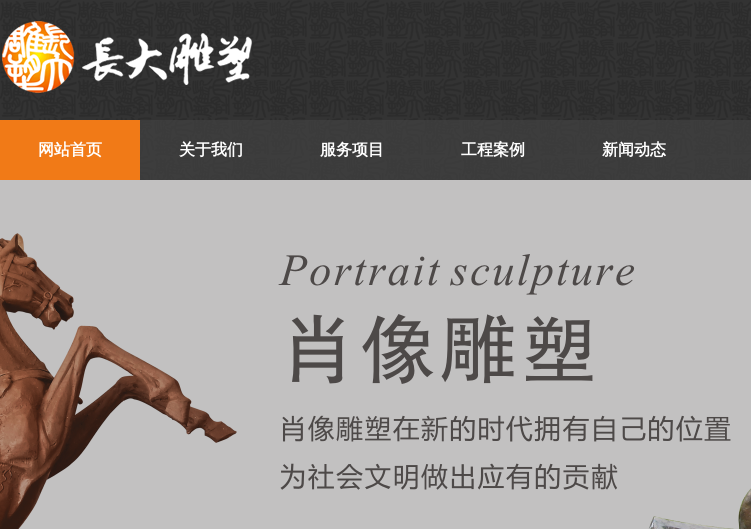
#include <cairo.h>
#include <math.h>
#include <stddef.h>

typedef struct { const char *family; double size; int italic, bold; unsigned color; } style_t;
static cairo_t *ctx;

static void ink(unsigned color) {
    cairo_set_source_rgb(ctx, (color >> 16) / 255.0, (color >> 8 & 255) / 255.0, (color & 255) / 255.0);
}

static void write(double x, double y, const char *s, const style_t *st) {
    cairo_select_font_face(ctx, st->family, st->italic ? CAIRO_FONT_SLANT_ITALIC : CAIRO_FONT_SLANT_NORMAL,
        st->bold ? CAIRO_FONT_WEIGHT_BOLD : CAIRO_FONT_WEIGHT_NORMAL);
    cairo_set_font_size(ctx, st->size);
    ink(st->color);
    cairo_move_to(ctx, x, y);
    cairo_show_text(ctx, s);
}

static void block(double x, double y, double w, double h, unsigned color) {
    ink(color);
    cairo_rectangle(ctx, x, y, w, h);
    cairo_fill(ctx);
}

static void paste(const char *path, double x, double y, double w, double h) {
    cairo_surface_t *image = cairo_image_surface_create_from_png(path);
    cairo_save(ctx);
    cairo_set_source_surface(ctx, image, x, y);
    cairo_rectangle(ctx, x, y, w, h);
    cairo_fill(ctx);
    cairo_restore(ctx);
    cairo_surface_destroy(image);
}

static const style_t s1 = {"WenQuanYi Zen Hei", 16, 0, 1, 0xffffff};

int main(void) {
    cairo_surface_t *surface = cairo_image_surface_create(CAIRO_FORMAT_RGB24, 751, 529);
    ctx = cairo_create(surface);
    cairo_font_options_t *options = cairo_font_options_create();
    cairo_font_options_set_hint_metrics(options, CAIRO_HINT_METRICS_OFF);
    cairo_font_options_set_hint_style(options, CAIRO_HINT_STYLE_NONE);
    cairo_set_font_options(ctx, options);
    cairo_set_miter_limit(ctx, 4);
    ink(0xffffff);
    cairo_paint(ctx);
    paste("pic1.png", 0, 0, 751, 180);
    paste("pic2.png", 2, 21, 250, 72);
    cairo_set_source_rgba(ctx, 0.267, 0.267, 0.267, 0.6);
    cairo_rectangle(ctx, 140, 120, 611, 60);
    cairo_fill(ctx);
    block(0, 120, 140, 60, 0xf17a17);
    write(38, 155, "网站首页", &s1);
    write(179, 155, "关于我们", &s1);
    write(320, 155, "服务项目", &s1);
    write(461, 155, "工程案例", &s1);
    write(602, 155, "新闻动态", &s1);
    paste("pic3.png", 0, 180, 751, 349);
    cairo_surface_write_to_png(surface, "screenshot.png");
    cairo_font_options_destroy(options);
    cairo_destroy(ctx);
    cairo_surface_destroy(surface);
    return 0;
}
